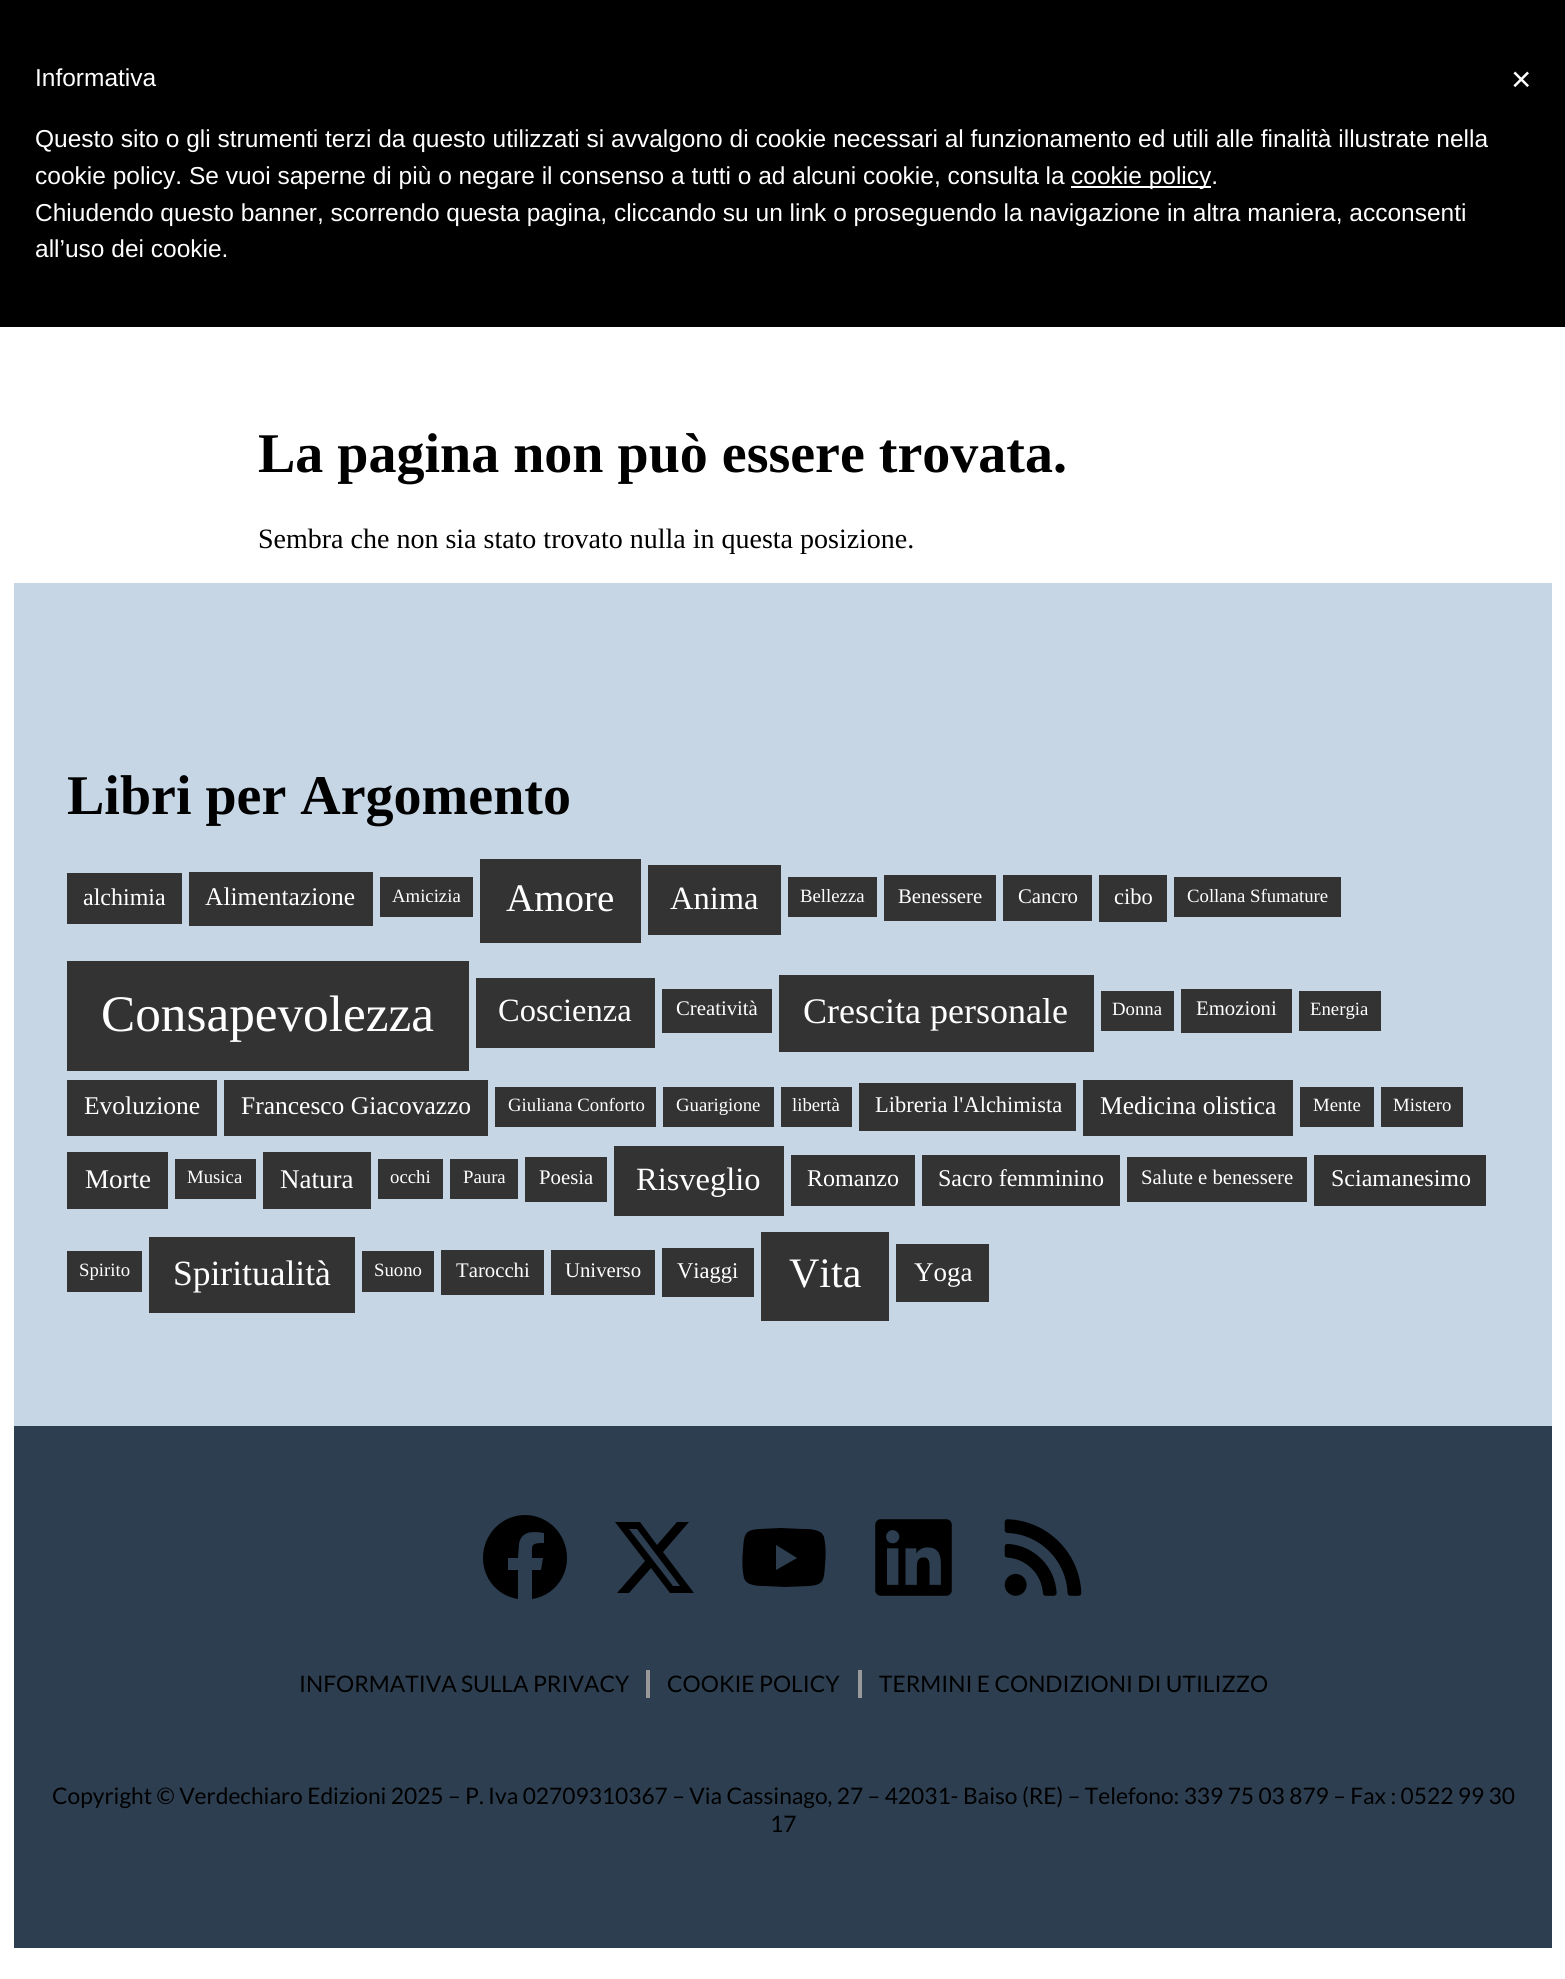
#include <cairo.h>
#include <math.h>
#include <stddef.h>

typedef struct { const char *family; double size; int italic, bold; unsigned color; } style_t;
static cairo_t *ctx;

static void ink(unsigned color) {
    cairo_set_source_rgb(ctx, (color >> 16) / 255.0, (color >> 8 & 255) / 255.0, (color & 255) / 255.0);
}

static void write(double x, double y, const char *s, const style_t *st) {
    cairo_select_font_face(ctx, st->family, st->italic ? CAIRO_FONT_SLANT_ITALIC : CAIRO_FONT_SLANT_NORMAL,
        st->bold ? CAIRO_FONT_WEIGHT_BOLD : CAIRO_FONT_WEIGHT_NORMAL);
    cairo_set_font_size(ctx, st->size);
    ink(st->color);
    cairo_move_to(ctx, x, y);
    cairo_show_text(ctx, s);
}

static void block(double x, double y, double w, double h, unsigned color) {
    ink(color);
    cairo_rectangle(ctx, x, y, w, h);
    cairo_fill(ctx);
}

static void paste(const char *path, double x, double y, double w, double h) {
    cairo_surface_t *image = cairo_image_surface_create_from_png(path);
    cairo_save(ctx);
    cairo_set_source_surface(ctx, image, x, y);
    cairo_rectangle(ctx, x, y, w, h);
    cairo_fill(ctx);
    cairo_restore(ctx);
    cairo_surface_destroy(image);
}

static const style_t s1 = {"Liberation Sans", 24.5, 0, 0, 0xffffff};
static const style_t s2 = {"Liberation Sans", 35, 0, 0, 0xffffff};
static const style_t s3 = {"Liberation Serif", 56, 0, 1, 0x000000};
static const style_t s4 = {"Liberation Serif", 28, 0, 0, 0x000000};
static const style_t s5 = {"Liberation Serif", 24, 0, 0, 0xffffff};
static const style_t s6 = {"Liberation Serif", 25.5, 0, 0, 0xffffff};
static const style_t s7 = {"Liberation Serif", 18.75, 0, 0, 0xffffff};
static const style_t s8 = {"Liberation Serif", 39, 0, 0, 0xffffff};
static const style_t s9 = {"Liberation Serif", 32.5, 0, 0, 0xffffff};
static const style_t s10 = {"Liberation Serif", 20.75, 0, 0, 0xffffff};
static const style_t s11 = {"Liberation Serif", 22.5, 0, 0, 0xffffff};
static const style_t s12 = {"Liberation Serif", 51.25, 0, 0, 0xffffff};
static const style_t s13 = {"Liberation Serif", 36, 0, 0, 0xffffff};
static const style_t s14 = {"Liberation Serif", 27, 0, 0, 0xffffff};
static const style_t s15 = {"Liberation Serif", 35.5, 0, 0, 0xffffff};
static const style_t s16 = {"Liberation Serif", 42, 0, 0, 0xffffff};
static const style_t s17 = {"Lato", 22.75, 0, 0, 0x000000};

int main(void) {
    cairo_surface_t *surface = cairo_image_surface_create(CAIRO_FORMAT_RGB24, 1565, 1979);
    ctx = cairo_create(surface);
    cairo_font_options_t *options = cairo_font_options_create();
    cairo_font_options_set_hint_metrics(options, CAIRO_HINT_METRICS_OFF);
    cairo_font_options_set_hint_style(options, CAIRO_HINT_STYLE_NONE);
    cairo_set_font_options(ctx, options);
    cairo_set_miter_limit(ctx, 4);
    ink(0xffffff);
    cairo_paint(ctx);
    block(0, 0, 1565, 327, 0x000000);
    write(35, 86, "Informativa", &s1);
    write(35, 147, "Questo sito o gli strumenti terzi da questo utilizzati si avvalgono di cookie necessari al funzionamento ed utili alle finalità illustrate nella", &s1);
    write(35, 184, "cookie policy. Se vuoi saperne di più o negare il consenso a tutti o ad alcuni cookie, consulta la", &s1);
    block(1071, 186, 140, 2, 0xffffff);
    write(1071, 184, "cookie policy.", &s1);
    write(35, 221, "Chiudendo questo banner, scorrendo questa pagina, cliccando su un link o proseguendo la navigazione in altra maniera, acconsenti", &s1);
    write(35, 257, "all’uso dei cookie.", &s1);
    write(1511, 91, "×", &s2);
    write(258, 472, "La pagina non può essere trovata.", &s3);
    write(258, 548, "Sembra che non sia stato trovato nulla in questa posizione.", &s4);
    block(14, 583, 1538, 843, 0xc7d6e5);
    write(67, 814, "Libri per Argomento", &s3);
    block(67, 873, 115, 51, 0x333333);
    write(83, 905, "alchimia", &s5);
    block(189, 872, 184, 54, 0x333333);
    write(205, 905, "Alimentazione", &s6);
    block(380, 877, 93, 40, 0x333333);
    write(392, 902, "Amicizia", &s7);
    block(480, 859, 161, 84, 0x333333);
    write(506, 911, "Amore", &s8);
    block(648, 865, 133, 70, 0x333333);
    write(670, 909, "Anima", &s9);
    block(788, 877, 89, 40, 0x333333);
    write(800, 902, "Bellezza", &s7);
    block(884, 875, 112, 46, 0x333333);
    write(898, 903, "Benessere", &s10);
    block(1003, 875, 89, 46, 0x333333);
    write(1018, 903, "Cancro", &s10);
    block(1099, 875, 68, 47, 0x333333);
    write(1114, 904, "cibo", &s11);
    block(1174, 877, 167, 40, 0x333333);
    write(1187, 902, "Collana Sfumature", &s7);
    block(67, 961, 402, 110, 0x333333);
    write(101, 1031, "Consapevolezza", &s12);
    block(476, 978, 179, 70, 0x333333);
    write(498, 1021, "Coscienza", &s9);
    block(662, 989, 110, 44, 0x333333);
    write(676, 1015, "Creatività", &s10);
    block(779, 975, 315, 77, 0x333333);
    write(803, 1023, "Crescita personale", &s13);
    block(1101, 991, 73, 40, 0x333333);
    write(1112, 1015, "Donna", &s7);
    block(1181, 989, 111, 44, 0x333333);
    write(1196, 1015, "Emozioni", &s10);
    block(1299, 991, 82, 40, 0x333333);
    write(1310, 1015, "Energia", &s7);
    block(67, 1080, 150, 56, 0x333333);
    write(84, 1114, "Evoluzione", &s6);
    block(224, 1080, 264, 56, 0x333333);
    write(241, 1114, "Francesco Giacovazzo", &s6);
    block(495, 1087, 161, 40, 0x333333);
    write(508, 1111, "Giuliana Conforto", &s7);
    block(663, 1087, 111, 40, 0x333333);
    write(676, 1111, "Guarigione", &s7);
    block(781, 1087, 71, 40, 0x333333);
    write(792, 1111, "libertà", &s7);
    block(859, 1083, 217, 48, 0x333333);
    write(875, 1112, "Libreria l'Alchimista", &s11);
    block(1083, 1080, 210, 56, 0x333333);
    write(1100, 1114, "Medicina olistica", &s6);
    block(1300, 1087, 74, 40, 0x333333);
    write(1313, 1111, "Mente", &s7);
    block(1381, 1087, 82, 40, 0x333333);
    write(1393, 1111, "Mistero", &s7);
    block(67, 1152, 101, 57, 0x333333);
    write(85, 1188, "Morte", &s14);
    block(175, 1159, 81, 40, 0x333333);
    write(187, 1183, "Musica", &s7);
    block(263, 1152, 108, 57, 0x333333);
    write(280, 1188, "Natura", &s14);
    block(378, 1159, 65, 40, 0x333333);
    write(390, 1183, "occhi", &s7);
    block(450, 1159, 68, 40, 0x333333);
    write(463, 1183, "Paura", &s7);
    block(525, 1157, 82, 45, 0x333333);
    write(539, 1184, "Poesia", &s10);
    block(614, 1146, 170, 70, 0x333333);
    write(636, 1190, "Risveglio", &s9);
    block(791, 1155, 124, 51, 0x333333);
    write(807, 1186, "Romanzo", &s5);
    block(922, 1155, 198, 51, 0x333333);
    write(938, 1186, "Sacro femminino", &s5);
    block(1127, 1157, 180, 45, 0x333333);
    write(1141, 1184, "Salute e benessere", &s10);
    block(1314, 1155, 172, 51, 0x333333);
    write(1331, 1186, "Sciamanesimo", &s5);
    block(67, 1251, 75, 41, 0x333333);
    write(79, 1276, "Spirito", &s7);
    block(149, 1237, 206, 76, 0x333333);
    write(173, 1285, "Spiritualità", &s15);
    block(362, 1251, 72, 41, 0x333333);
    write(374, 1276, "Suono", &s7);
    block(441, 1250, 103, 45, 0x333333);
    write(456, 1277, "Tarocchi", &s10);
    block(551, 1250, 104, 45, 0x333333);
    write(565, 1277, "Universo", &s10);
    block(662, 1248, 92, 49, 0x333333);
    write(677, 1278, "Viaggi", &s11);
    block(761, 1232, 128, 89, 0x333333);
    write(789, 1287, "Vita", &s16);
    block(896, 1244, 93, 58, 0x333333);
    write(914, 1281, "Yoga", &s14);
    block(14, 1426, 1538, 522, 0x2c3e50);
    ink(0x000000);
    cairo_new_path(ctx);
    cairo_move_to(ctx, 567, 1558);
    cairo_curve_to(ctx, 567, 1534, 548, 1515, 525, 1515);
    cairo_curve_to(ctx, 502, 1515, 483, 1534, 483, 1558);
    cairo_curve_to(ctx, 483, 1579, 498, 1596, 518, 1599);
    cairo_line_to(ctx, 518, 1570);
    cairo_line_to(ctx, 508, 1570);
    cairo_line_to(ctx, 508, 1558);
    cairo_line_to(ctx, 518, 1558);
    cairo_line_to(ctx, 519, 1544);
    cairo_curve_to(ctx, 521, 1531, 533, 1531, 544, 1533);
    cairo_line_to(ctx, 544, 1543);
    cairo_curve_to(ctx, 530, 1543, 532, 1545, 532, 1558);
    cairo_line_to(ctx, 543, 1558);
    cairo_line_to(ctx, 541, 1570);
    cairo_line_to(ctx, 532, 1570);
    cairo_line_to(ctx, 532, 1599);
    cairo_curve_to(ctx, 552, 1596, 567, 1579, 567, 1558);
    cairo_close_path(ctx);
    cairo_fill(ctx);
    cairo_new_path(ctx);
    cairo_move_to(ctx, 677, 1522);
    cairo_line_to(ctx, 689, 1522);
    cairo_line_to(ctx, 663, 1552);
    cairo_line_to(ctx, 694, 1593);
    cairo_line_to(ctx, 670, 1593);
    cairo_line_to(ctx, 651, 1568);
    cairo_line_to(ctx, 629, 1593);
    cairo_line_to(ctx, 617, 1593);
    cairo_line_to(ctx, 645, 1561);
    cairo_line_to(ctx, 615, 1522);
    cairo_line_to(ctx, 640, 1522);
    cairo_line_to(ctx, 657, 1545);
    cairo_close_path(ctx);
    cairo_move_to(ctx, 673, 1586);
    cairo_line_to(ctx, 680, 1586);
    cairo_line_to(ctx, 637, 1529);
    cairo_line_to(ctx, 629, 1529);
    cairo_close_path(ctx);
    cairo_fill(ctx);
    cairo_new_path(ctx);
    cairo_move_to(ctx, 824, 1537);
    cairo_curve_to(ctx, 823, 1534, 821, 1532, 818, 1531);
    cairo_curve_to(ctx, 813, 1529, 808, 1529, 803, 1529);
    cairo_line_to(ctx, 780, 1528);
    cairo_line_to(ctx, 759, 1529);
    cairo_curve_to(ctx, 744, 1530, 744, 1535, 743, 1550);
    cairo_curve_to(ctx, 742, 1559, 742, 1569, 744, 1578);
    cairo_curve_to(ctx, 745, 1581, 747, 1583, 750, 1584);
    cairo_curve_to(ctx, 755, 1586, 760, 1586, 765, 1586);
    cairo_line_to(ctx, 785, 1587);
    cairo_line_to(ctx, 809, 1586);
    cairo_curve_to(ctx, 824, 1585, 824, 1580, 825, 1565);
    cairo_curve_to(ctx, 826, 1556, 826, 1546, 824, 1537);
    cairo_close_path(ctx);
    cairo_move_to(ctx, 776, 1570);
    cairo_line_to(ctx, 776, 1545);
    cairo_line_to(ctx, 797, 1558);
    cairo_close_path(ctx);
    cairo_fill(ctx);
    paste("pic1.png", 875, 1519, 77, 77);
    paste("pic2.png", 1004, 1519, 78, 77);
    write(299, 1692, "INFORMATIVA SULLA PRIVACY", &s17);
    block(646, 1670, 4, 28, 0x999999);
    write(667, 1692, "COOKIE POLICY", &s17);
    block(858, 1670, 4, 28, 0x999999);
    write(879, 1692, "TERMINI E CONDIZIONI DI UTILIZZO", &s17);
    write(52, 1804, "Copyright © Verdechiaro Edizioni 2025 – P. Iva 02709310367 – Via Cassinago, 27 – 42031- Baiso (RE) – Telefono: 339 75 03 879 – Fax : 0522 99 30", &s17);
    write(770, 1832, "17", &s17);
    cairo_surface_write_to_png(surface, "screenshot.png");
    cairo_font_options_destroy(options);
    cairo_destroy(ctx);
    cairo_surface_destroy(surface);
    return 0;
}
